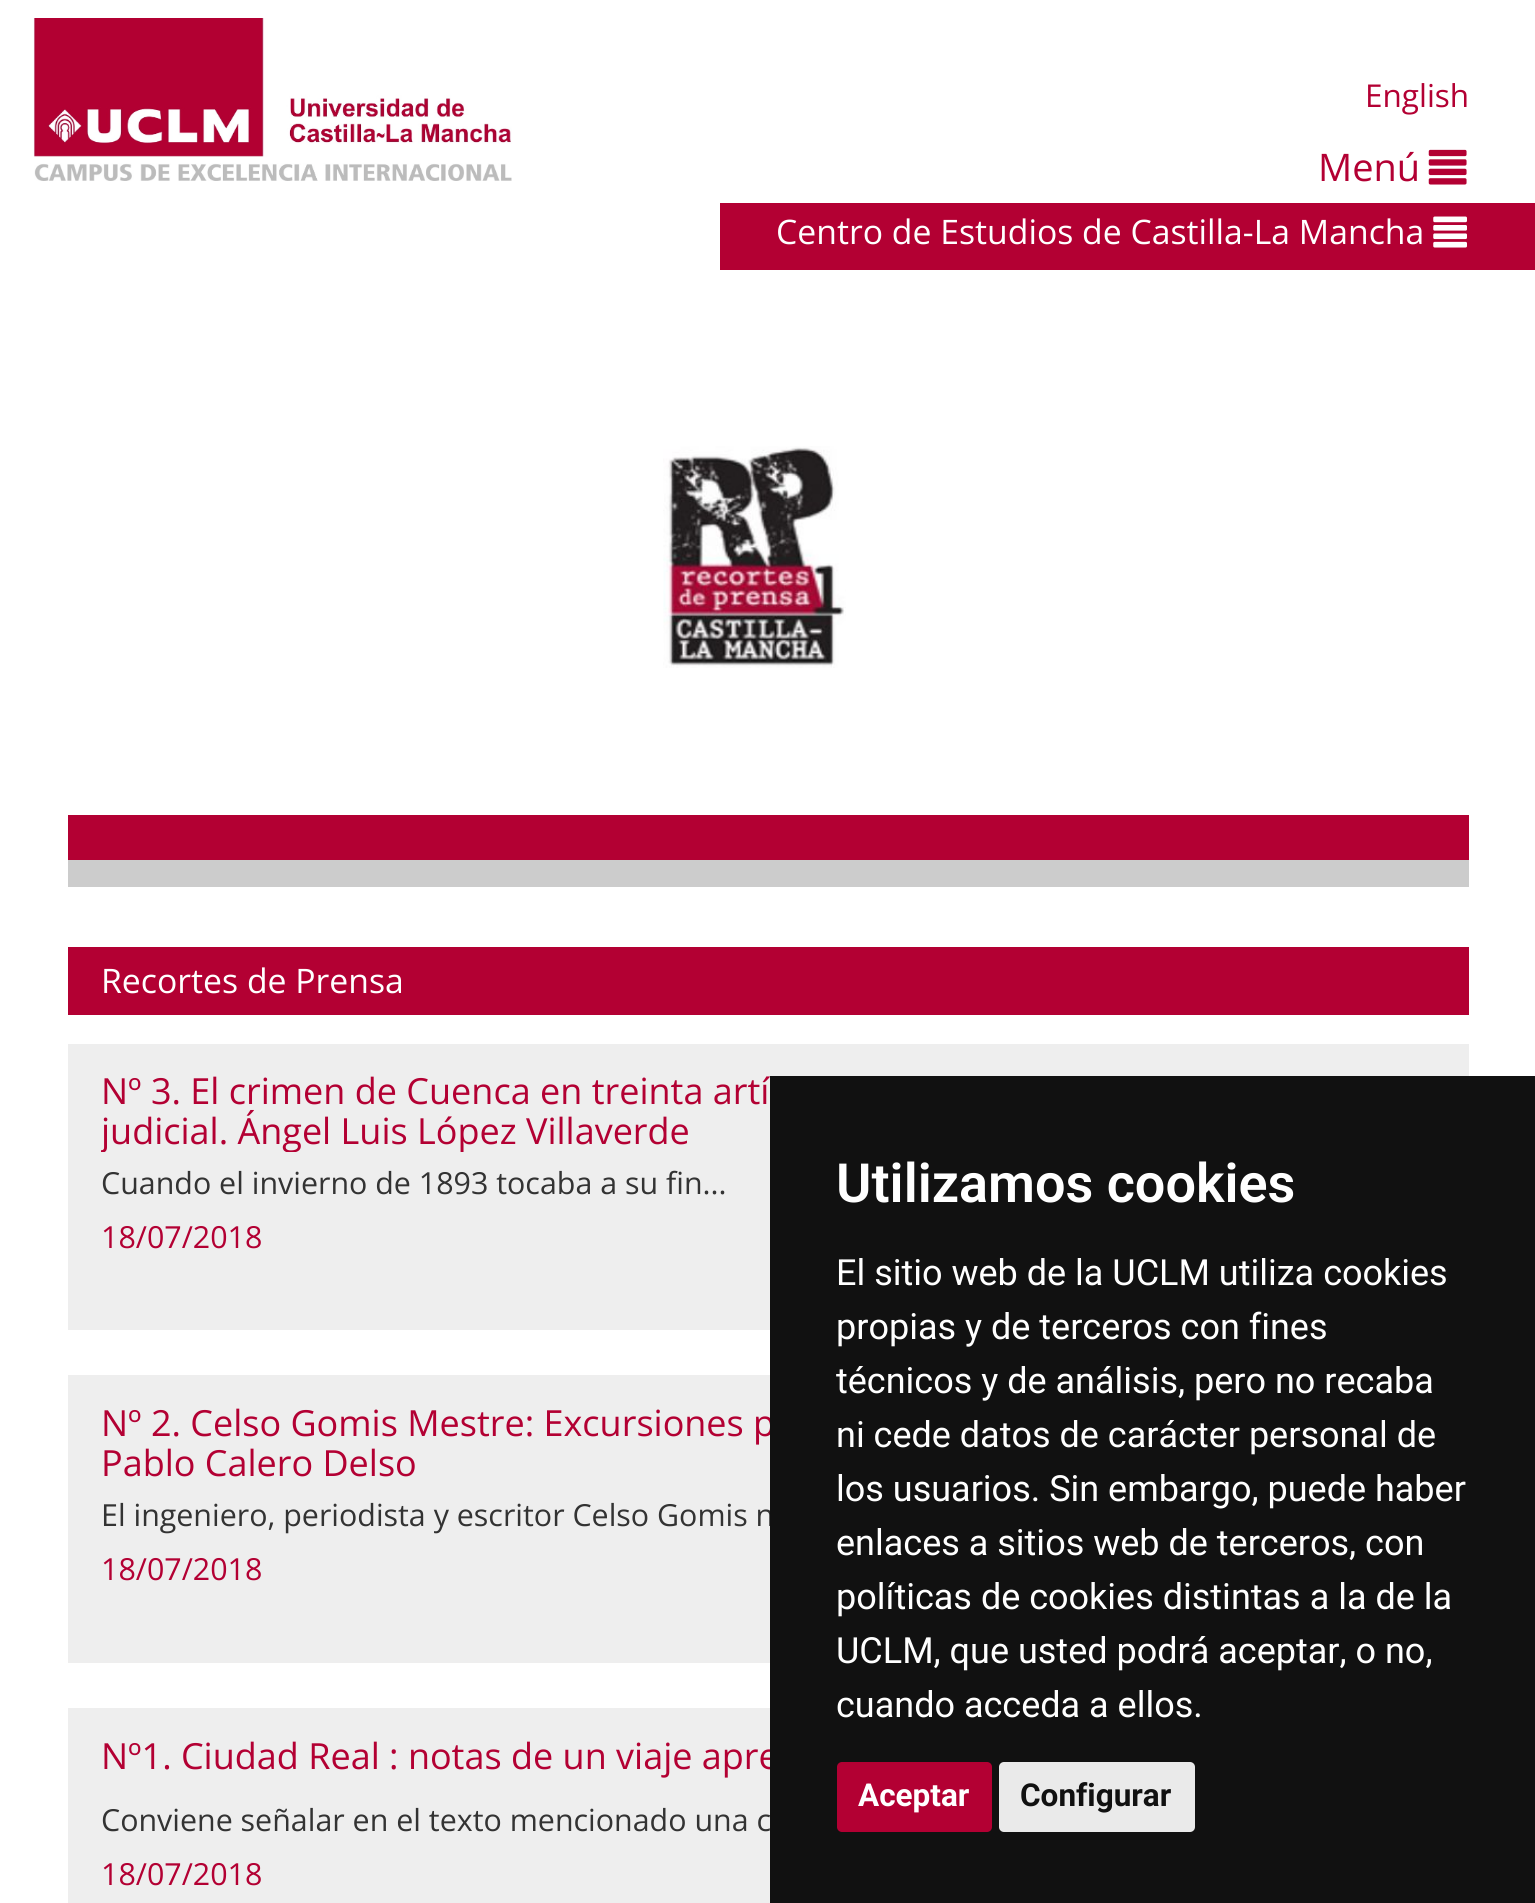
#include <cairo.h>
#include <math.h>
#include <stddef.h>

typedef struct { const char *family; double size; int italic, bold; unsigned color; } style_t;
static cairo_t *ctx;

static void ink(unsigned color) {
    cairo_set_source_rgb(ctx, (color >> 16) / 255.0, (color >> 8 & 255) / 255.0, (color & 255) / 255.0);
}

static void write(double x, double y, const char *s, const style_t *st) {
    cairo_select_font_face(ctx, st->family, st->italic ? CAIRO_FONT_SLANT_ITALIC : CAIRO_FONT_SLANT_NORMAL,
        st->bold ? CAIRO_FONT_WEIGHT_BOLD : CAIRO_FONT_WEIGHT_NORMAL);
    cairo_set_font_size(ctx, st->size);
    ink(st->color);
    cairo_move_to(ctx, x, y);
    cairo_show_text(ctx, s);
}

static void block(double x, double y, double w, double h, unsigned color) {
    ink(color);
    cairo_rectangle(ctx, x, y, w, h);
    cairo_fill(ctx);
}

static void round_path(double x, double y, double w, double h, double r) {
    cairo_new_sub_path(ctx);
    cairo_arc(ctx, x + w - r, y + h - r, r, 0, M_PI / 2);
    cairo_arc(ctx, x + r, y + h - r, r, M_PI / 2, M_PI);
    cairo_arc(ctx, x + r, y + r, r, M_PI, 1.5 * M_PI);
    cairo_arc(ctx, x + w - r, y + r, r, 1.5 * M_PI, 2 * M_PI);
    cairo_close_path(ctx);
}

static void paste(const char *path, double x, double y, double w, double h) {
    cairo_surface_t *image = cairo_image_surface_create_from_png(path);
    cairo_save(ctx);
    cairo_set_source_surface(ctx, image, x, y);
    cairo_rectangle(ctx, x, y, w, h);
    cairo_fill(ctx);
    cairo_restore(ctx);
    cairo_surface_destroy(image);
}

static const style_t s1 = {"Open Sans", 31.5, 0, 0, 0xb30033};
static const style_t s2 = {"Open Sans", 38, 0, 0, 0xb30033};
static const style_t s3 = {"Open Sans", 33.75, 0, 0, 0xffffff};
static const style_t s4 = {"Open Sans", 36, 0, 0, 0xb30033};
static const style_t s5 = {"Open Sans", 30.4, 0, 0, 0x333333};
static const style_t s6 = {"Open Sans", 30.4, 0, 0, 0xb30033};
static const style_t s7 = {"Roboto SemiBold", 54, 0, 0, 0xffffff};
static const style_t s8 = {"Roboto", 36, 0, 0, 0xffffff};
static const style_t s9 = {"Roboto", 31.5, 0, 1, 0xffffff};
static const style_t s10 = {"Roboto", 31.5, 0, 1, 0x111111};

int main(void) {
    cairo_surface_t *surface = cairo_image_surface_create(CAIRO_FORMAT_RGB24, 1535, 1903);
    ctx = cairo_create(surface);
    cairo_font_options_t *options = cairo_font_options_create();
    cairo_font_options_set_hint_metrics(options, CAIRO_HINT_METRICS_OFF);
    cairo_font_options_set_hint_style(options, CAIRO_HINT_STYLE_NONE);
    cairo_set_font_options(ctx, options);
    cairo_set_miter_limit(ctx, 4);
    ink(0xffffff);
    cairo_paint(ctx);
    paste("pic1.png", 33, 18, 479, 163);
    write(1365, 107, "English", &s1);
    write(1318, 181, "Menú", &s2);
    paste("pic2.png", 1428, 149, 39, 36);
    block(720, 203, 815, 67, 0xb30033);
    write(776, 244, "Centro de Estudios de Castilla-La Mancha", &s3);
    paste("pic3.png", 1433, 216, 34, 32);
    paste("pic4.png", 663, 446, 183, 222);
    block(68, 815, 1401, 45, 0xb30033);
    block(68, 860, 1401, 27, 0xcccccc);
    block(68, 947, 1401, 68, 0xb30033);
    write(101, 993, "Recortes de Prensa", &s3);
    block(68, 1044, 1401, 286, 0xeeeeee);
    write(101, 1104, "Nº 3. El crimen de Cuenca en treinta artí", &s4);
    cairo_save(ctx);
    cairo_rectangle(ctx, 101, 1055, 1335, 97);
    cairo_clip(ctx);
    write(101, 1144, "judicial. Ángel Luis López Villaverde", &s4);
    cairo_restore(ctx);
    write(101, 1194, "Cuando el invierno de 1893 tocaba a su fin...", &s5);
    write(101, 1248, "18/07/2018", &s6);
    block(68, 1375, 702, 288, 0xeeeeee);
    write(101, 1436, "Nº 2. Celso Gomis Mestre: Excursiones p", &s4);
    write(101, 1476, "Pablo Calero Delso", &s4);
    write(101, 1526, "El ingeniero, periodista y escritor Celso Gomis n", &s5);
    write(101, 1580, "18/07/2018", &s6);
    block(68, 1708, 702, 195, 0xeeeeee);
    write(101, 1769, "Nº1. Ciudad Real : notas de un viaje apre", &s4);
    write(101, 1831, "Conviene señalar en el texto mencionado una c", &s5);
    write(101, 1885, "18/07/2018", &s6);
    block(770, 1076, 765, 827, 0x111111);
    write(836, 1202, "Utilizamos cookies", &s7);
    write(836, 1285, "El sitio web de la UCLM utiliza cookies", &s8);
    write(836, 1339, "propias y de terceros con fines", &s8);
    write(836, 1393, "técnicos y de análisis, pero no recaba", &s8);
    write(836, 1447, "ni cede datos de carácter personal de", &s8);
    write(836, 1501, "los usuarios. Sin embargo, puede haber", &s8);
    write(836, 1555, "enlaces a sitios web de terceros, con", &s8);
    write(836, 1609, "políticas de cookies distintas a la de la", &s8);
    write(836, 1663, "UCLM, que usted podrá aceptar, o no,", &s8);
    write(836, 1717, "cuando acceda a ellos.", &s8);
    ink(0xb30033);
    round_path(837, 1762, 155, 70, 5);
    cairo_fill(ctx);
    write(858, 1806, "Aceptar", &s9);
    ink(0xeaeaea);
    round_path(999, 1762, 196, 70, 5);
    cairo_fill(ctx);
    write(1020, 1806, "Configurar", &s10);
    cairo_surface_write_to_png(surface, "screenshot.png");
    cairo_font_options_destroy(options);
    cairo_destroy(ctx);
    cairo_surface_destroy(surface);
    return 0;
}
